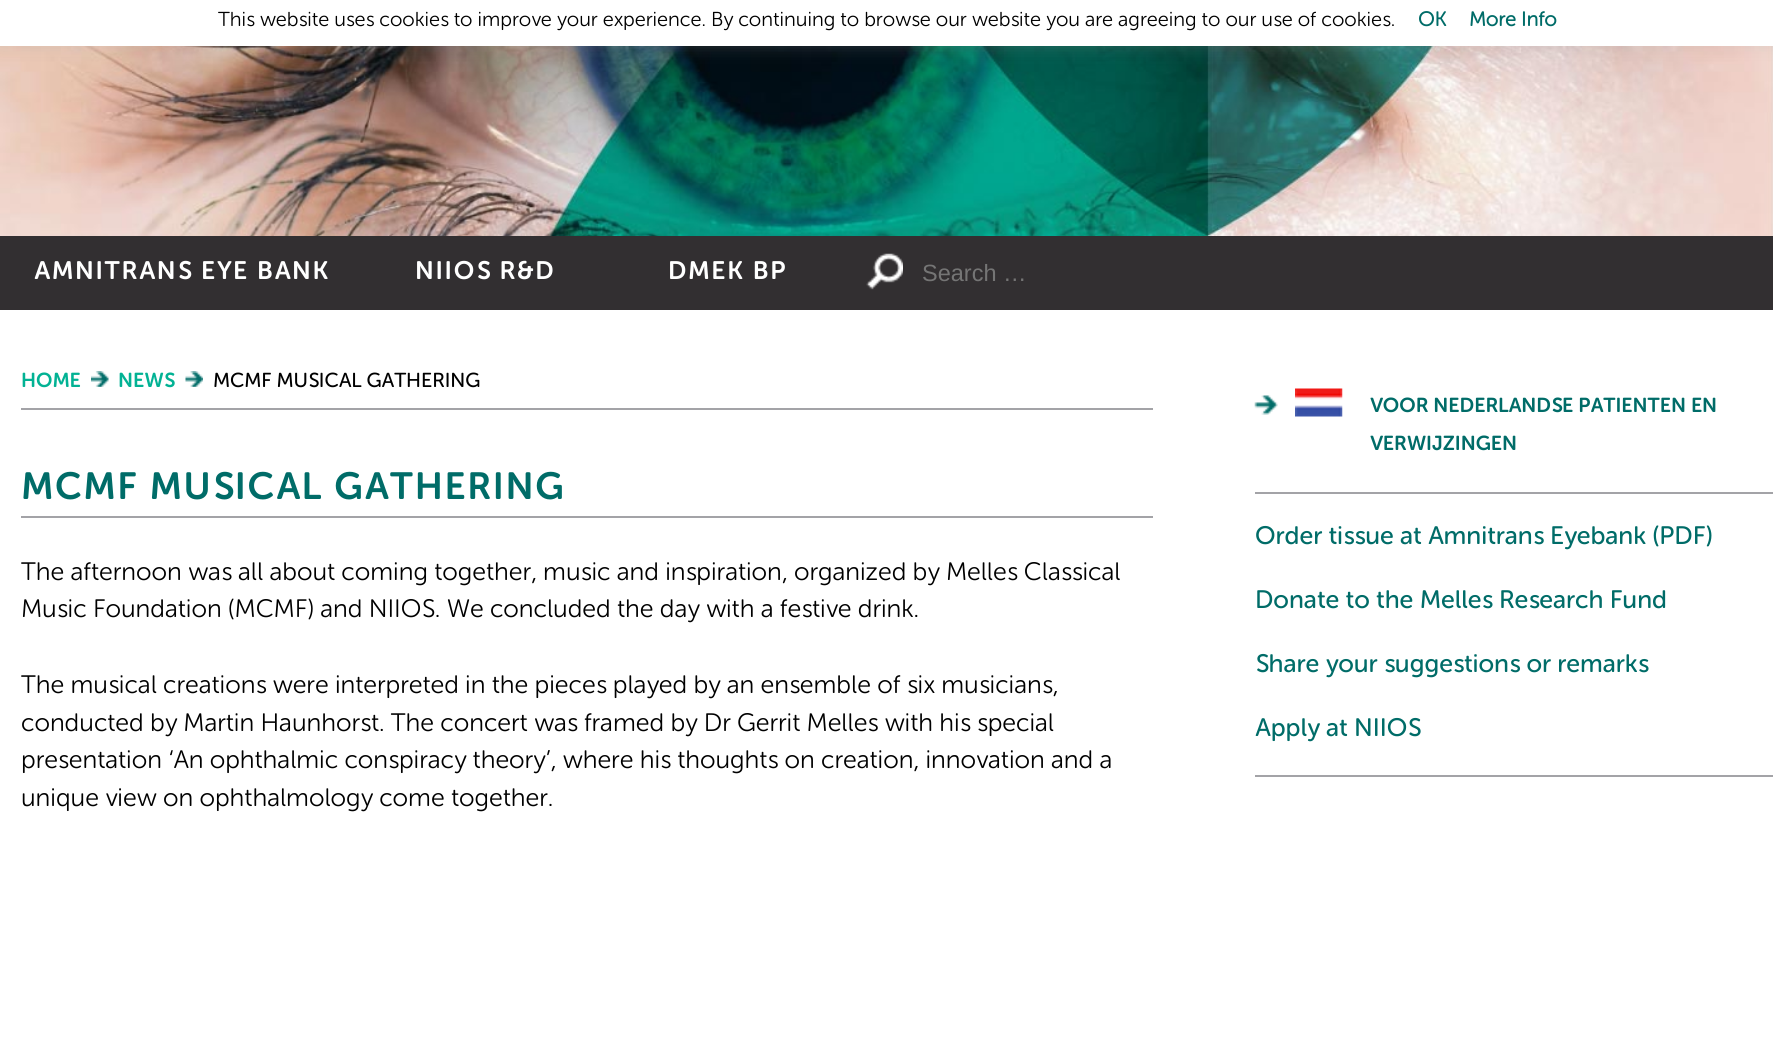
#include <cairo.h>
#include <math.h>
#include <stddef.h>

typedef struct { const char *family; double size; int italic, bold; unsigned color; } style_t;
static cairo_t *ctx;

static void ink(unsigned color) {
    cairo_set_source_rgb(ctx, (color >> 16) / 255.0, (color >> 8 & 255) / 255.0, (color & 255) / 255.0);
}

static void write(double x, double y, const char *s, const style_t *st) {
    cairo_select_font_face(ctx, st->family, st->italic ? CAIRO_FONT_SLANT_ITALIC : CAIRO_FONT_SLANT_NORMAL,
        st->bold ? CAIRO_FONT_WEIGHT_BOLD : CAIRO_FONT_WEIGHT_NORMAL);
    cairo_set_font_size(ctx, st->size);
    ink(st->color);
    cairo_move_to(ctx, x, y);
    cairo_show_text(ctx, s);
}

static void write_spaced(double x, double y, const char *s, double letter, double word) {
    cairo_move_to(ctx, x, y);
    while (*s) {
        char ch[5] = {0};
        int n = 0;
        do ch[n++] = *s++; while ((*s & 0xC0) == 0x80);
        cairo_show_text(ctx, ch);
        cairo_rel_move_to(ctx, letter + word * (*ch == ' '), 0);
    }
}

static void block(double x, double y, double w, double h, unsigned color) {
    ink(color);
    cairo_rectangle(ctx, x, y, w, h);
    cairo_fill(ctx);
}

static void round_path(double x, double y, double w, double h, double r) {
    cairo_new_sub_path(ctx);
    cairo_arc(ctx, x + w - r, y + h - r, r, 0, M_PI / 2);
    cairo_arc(ctx, x + r, y + h - r, r, M_PI / 2, M_PI);
    cairo_arc(ctx, x + r, y + r, r, M_PI, 1.5 * M_PI);
    cairo_arc(ctx, x + w - r, y + r, r, 1.5 * M_PI, 2 * M_PI);
    cairo_close_path(ctx);
}

static void blur_box(double x, double y, double w, double h, double r, double blur, double alpha) {
    cairo_push_group_with_content(ctx, CAIRO_CONTENT_ALPHA);
    cairo_set_operator(ctx, CAIRO_OPERATOR_SOURCE);
    for (int i = 15; i >= -15 && fmin(w, h) + blur * i / 3 > 0; i -= 2) {
        double e = blur * i / 6;
        cairo_set_source_rgba(ctx, 0, 0, 0, alpha * erfc((i - 1) / 8.5) / 2);
        round_path(x - e, y - e, w + 2 * e, h + 2 * e, fmax(0, fmin(r + e + blur * .6, fmin(w, h) / 2 + e)));
        cairo_fill(ctx);
    }
    cairo_pattern_t *soft = cairo_pop_group(ctx);
    cairo_mask(ctx, soft);
    cairo_pattern_destroy(soft);
}

static void paste(const char *path, double x, double y, double w, double h) {
    cairo_surface_t *image = cairo_image_surface_create_from_png(path);
    cairo_save(ctx);
    cairo_set_source_surface(ctx, image, x, y);
    cairo_rectangle(ctx, x, y, w, h);
    cairo_fill(ctx);
    cairo_restore(ctx);
    cairo_surface_destroy(image);
}

static const style_t s1 = {"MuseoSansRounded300", 20.15, 0, 0, 0x000000};
static const style_t s2 = {"MuseoSansRounded300", 20.15, 0, 1, 0x006c68};
static const style_t s3 = {"Liberation Sans", 23.5, 0, 0, 0x757575};
static const style_t s4 = {"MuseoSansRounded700", 20.15, 0, 0, 0x02b294};
static const style_t s5 = {"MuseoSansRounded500", 20.15, 0, 0, 0x000000};
static const style_t s6 = {"MuseoSansRounded300", 25.2, 0, 0, 0x000000};
static const style_t s7 = {"MuseoSansRounded700", 20.15, 0, 0, 0x006c68};
static const style_t s8 = {"MuseoSansRounded500", 25.2, 0, 0, 0x006c68};

int main(void) {
    cairo_surface_t *surface = cairo_image_surface_create(CAIRO_FORMAT_RGB24, 1773, 1056);
    ctx = cairo_create(surface);
    cairo_font_options_t *options = cairo_font_options_create();
    cairo_font_options_set_hint_metrics(options, CAIRO_HINT_METRICS_OFF);
    cairo_font_options_set_hint_style(options, CAIRO_HINT_STYLE_NONE);
    cairo_set_font_options(ctx, options);
    cairo_set_miter_limit(ctx, 4);
    ink(0xffffff);
    cairo_paint(ctx);
    paste("pic1.png", 0, 46, 1773, 190);
    ink(0xacabab);
    blur_box(0, -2, 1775, 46, 0, 9, 0.3);
    block(0, 0, 1773, 46, 0xffffff);
    write(218, 26, "This website uses cookies to improve your experience. By continuing to browse our website you are agreeing to our use of cookies.", &s1);
    write(1418, 26, "OK", &s2);
    write(1469, 26, "More Info", &s2);
    block(0, 236, 1773, 74, 0x322f31);
    cairo_select_font_face(ctx, "MuseoSansRounded700", CAIRO_FONT_SLANT_NORMAL, CAIRO_FONT_WEIGHT_NORMAL);
    cairo_set_font_size(ctx, 25.2);
    ink(0xffffff);
    write_spaced(34, 279, "AMNITRANS EYE BANK", 1.75, 0);
    write_spaced(415, 279, "NIIOS R&D", 1.75, 0);
    write_spaced(668, 279, "DMEK BP", 1.75, 0);
    paste("pic2.png", 866, 253, 37, 37);
    write(922, 281, "Search …", &s3);
    block(21, 408, 1132, 2, 0xa3a3a7);
    write(21, 387, "HOME", &s4);
    paste("pic3.png", 91, 371, 18, 16);
    write(118, 387, "NEWS", &s4);
    paste("pic4.png", 185, 371, 18, 16);
    write(213, 387, "MCMF MUSICAL GATHERING", &s5);
    block(21, 516, 1132, 2, 0xa3a3a7);
    cairo_select_font_face(ctx, "MuseoSansRounded700", CAIRO_FONT_SLANT_NORMAL, CAIRO_FONT_WEIGHT_NORMAL);
    cairo_set_font_size(ctx, 37.75);
    ink(0x006c68);
    write_spaced(21, 499, "MCMF MUSICAL GATHERING", 1.75, 0);
    write(21, 580, "The afternoon was all about coming together, music and inspiration, organized by Melles Classical", &s6);
    write(21, 617, "Music Foundation (MCMF) and NIIOS. We concluded the day with a festive drink.", &s6);
    write(21, 693, "The musical creations were interpreted in the pieces played by an ensemble of six musicians,", &s6);
    write(21, 731, "conducted by Martin Haunhorst. The concert was framed by Dr Gerrit Melles with his special", &s6);
    write(21, 768, "presentation ‘An ophthalmic conspiracy theory’, where his thoughts on creation, innovation and a", &s6);
    write(21, 806, "unique view on ophthalmology come together.", &s6);
    block(1255, 492, 518, 2, 0xa3a3a7);
    paste("pic5.png", 1254, 395, 24, 20);
    paste("pic6.png", 1295, 388, 48, 29);
    write(1370, 412, "VOOR NEDERLANDSE PATIENTEN EN", &s7);
    write(1370, 450, "VERWIJZINGEN", &s7);
    block(1255, 775, 518, 2, 0xa3a3a7);
    write(1255, 544, "Order tissue at Amnitrans Eyebank (PDF)", &s8);
    write(1255, 608, "Donate to the Melles Research Fund", &s8);
    write(1255, 672, "Share your suggestions or remarks", &s8);
    write(1255, 736, "Apply at NIIOS", &s8);
    cairo_surface_write_to_png(surface, "screenshot.png");
    cairo_font_options_destroy(options);
    cairo_destroy(ctx);
    cairo_surface_destroy(surface);
    return 0;
}
